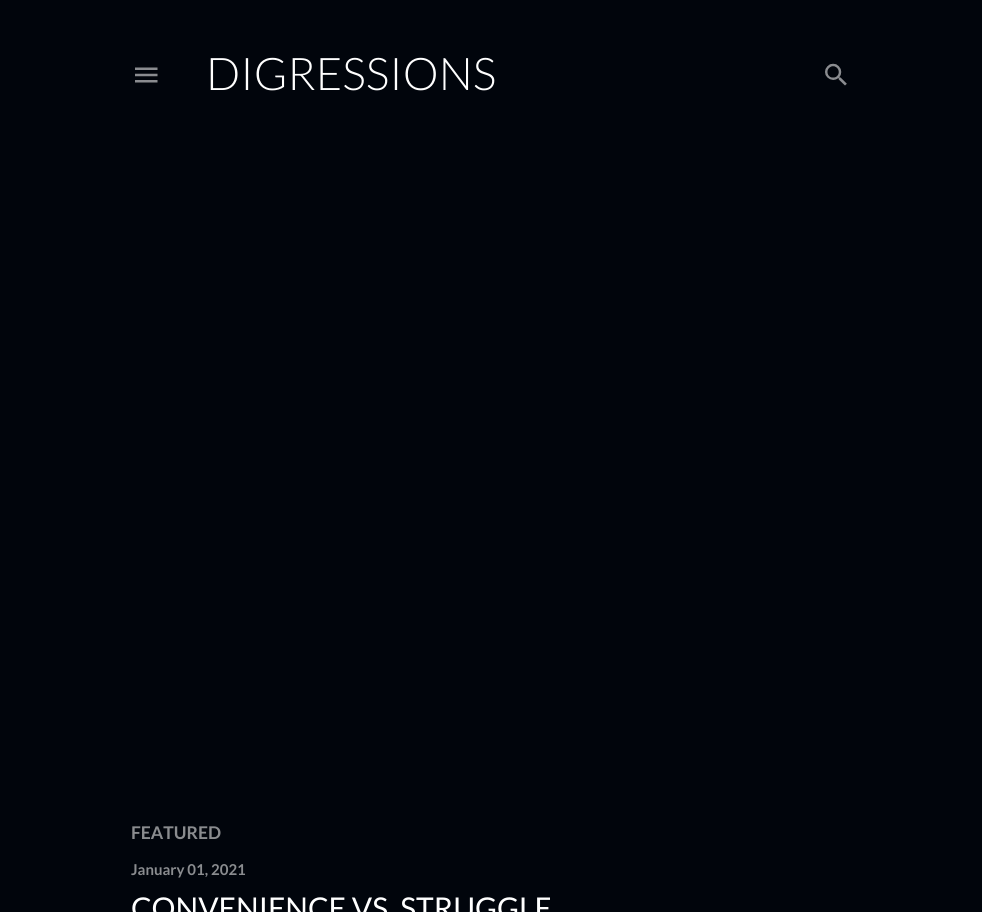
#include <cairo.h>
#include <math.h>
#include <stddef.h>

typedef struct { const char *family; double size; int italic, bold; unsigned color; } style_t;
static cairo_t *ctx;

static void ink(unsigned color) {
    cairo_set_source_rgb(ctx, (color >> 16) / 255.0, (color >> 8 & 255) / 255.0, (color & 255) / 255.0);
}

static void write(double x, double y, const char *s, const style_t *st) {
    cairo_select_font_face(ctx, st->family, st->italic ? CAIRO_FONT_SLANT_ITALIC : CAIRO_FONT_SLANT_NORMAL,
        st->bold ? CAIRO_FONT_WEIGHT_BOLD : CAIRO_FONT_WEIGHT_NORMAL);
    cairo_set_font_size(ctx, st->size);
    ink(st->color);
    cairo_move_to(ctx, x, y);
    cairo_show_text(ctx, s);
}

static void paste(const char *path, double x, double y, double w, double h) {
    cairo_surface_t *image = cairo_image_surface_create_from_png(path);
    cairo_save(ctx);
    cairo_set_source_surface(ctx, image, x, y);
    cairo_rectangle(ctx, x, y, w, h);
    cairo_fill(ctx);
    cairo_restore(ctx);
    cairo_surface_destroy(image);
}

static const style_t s1 = {"Lato Light", 45, 0, 0, 0xffffff};
static const style_t s2 = {"Lato", 17.5, 0, 1, 0x8a8c8f};
static const style_t s3 = {"Lato", 15, 0, 1, 0x8a8c8f};
static const style_t s4 = {"Lato", 30, 0, 0, 0xffffff};

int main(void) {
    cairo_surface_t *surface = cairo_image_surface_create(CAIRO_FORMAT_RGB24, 982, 912);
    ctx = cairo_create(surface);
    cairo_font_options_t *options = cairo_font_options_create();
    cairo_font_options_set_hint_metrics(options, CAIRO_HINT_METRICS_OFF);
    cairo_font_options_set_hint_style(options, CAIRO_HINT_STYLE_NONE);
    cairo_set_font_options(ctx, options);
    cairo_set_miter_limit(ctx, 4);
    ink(0x01050c);
    cairo_paint(ctx);
    paste("pic1.png", 135, 67, 23, 16);
    write(206, 90, "DIGRESSIONS", &s1);
    paste("pic2.png", 825, 63, 22, 23);
    write(131, 839, "FEATURED", &s2);
    write(131, 875, "January 01, 2021", &s3);
    write(131, 919, "CONVENIENCE VS. STRUGGLE", &s4);
    cairo_surface_write_to_png(surface, "screenshot.png");
    cairo_font_options_destroy(options);
    cairo_destroy(ctx);
    cairo_surface_destroy(surface);
    return 0;
}
